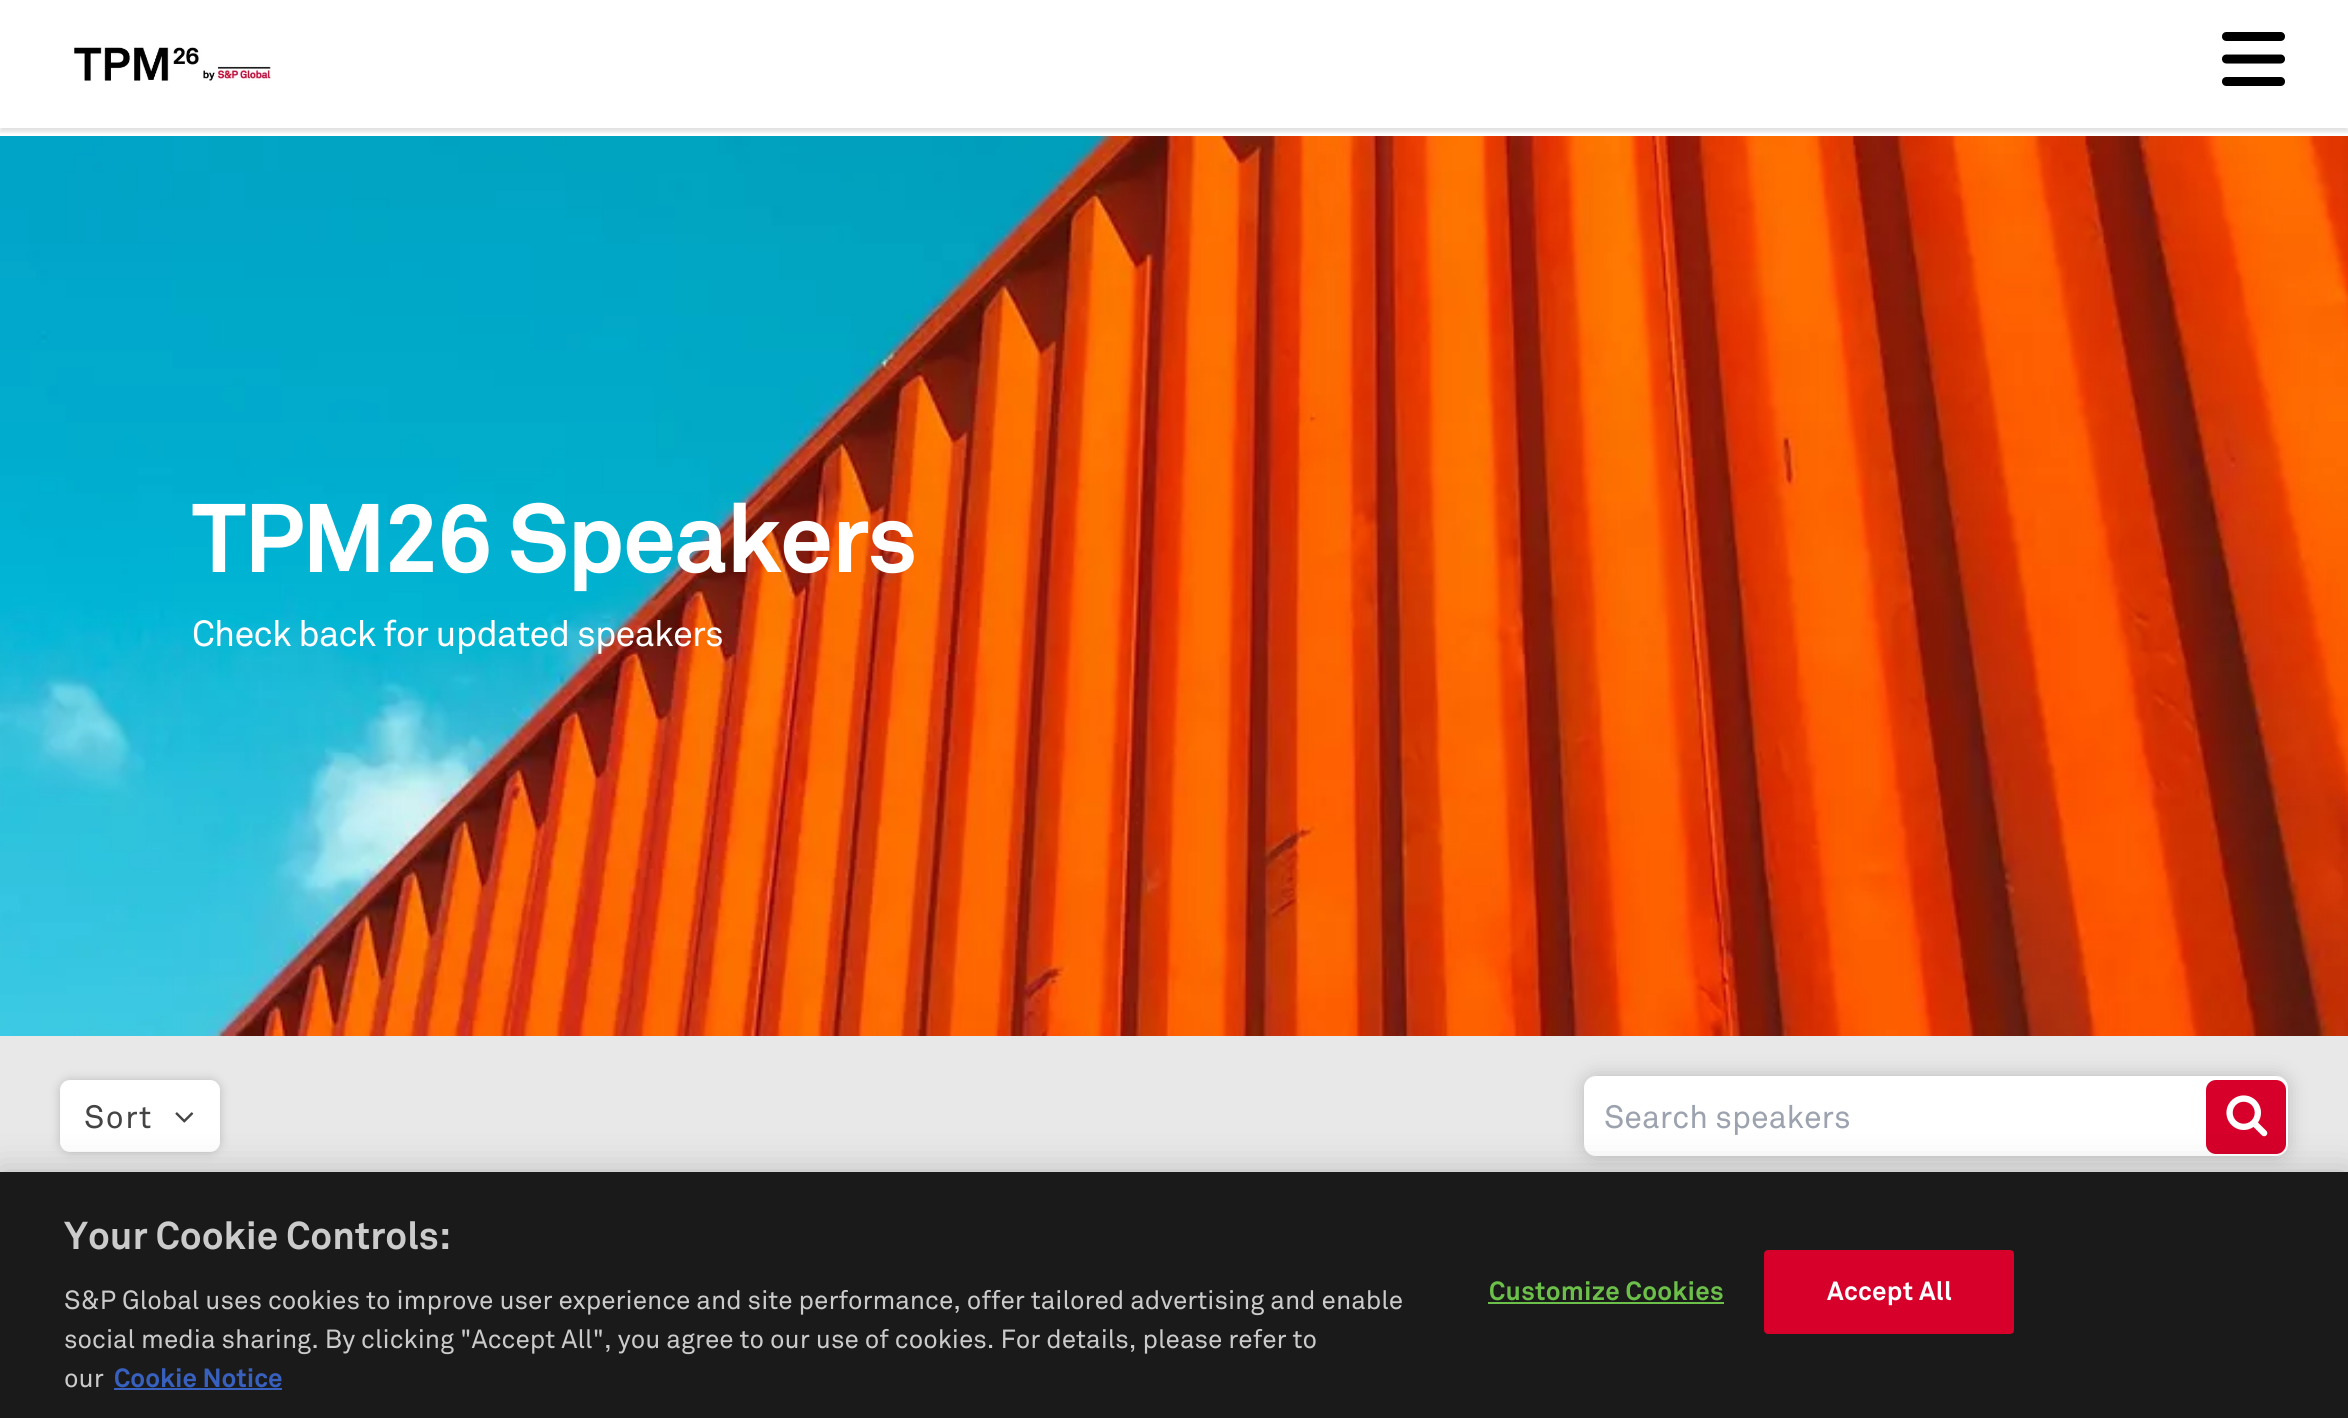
#include <cairo.h>
#include <math.h>
#include <stddef.h>

typedef struct { const char *family; double size; int italic, bold; unsigned color; } style_t;
static cairo_t *ctx;

static void ink(unsigned color) {
    cairo_set_source_rgb(ctx, (color >> 16) / 255.0, (color >> 8 & 255) / 255.0, (color & 255) / 255.0);
}

static void write(double x, double y, const char *s, const style_t *st) {
    cairo_select_font_face(ctx, st->family, st->italic ? CAIRO_FONT_SLANT_ITALIC : CAIRO_FONT_SLANT_NORMAL,
        st->bold ? CAIRO_FONT_WEIGHT_BOLD : CAIRO_FONT_WEIGHT_NORMAL);
    cairo_set_font_size(ctx, st->size);
    ink(st->color);
    cairo_move_to(ctx, x, y);
    cairo_show_text(ctx, s);
}

static void write_spaced(double x, double y, const char *s, double letter, double word) {
    cairo_move_to(ctx, x, y);
    while (*s) {
        char ch[5] = {0};
        int n = 0;
        do ch[n++] = *s++; while ((*s & 0xC0) == 0x80);
        cairo_show_text(ctx, ch);
        cairo_rel_move_to(ctx, letter + word * (*ch == ' '), 0);
    }
}

static void block(double x, double y, double w, double h, unsigned color) {
    ink(color);
    cairo_rectangle(ctx, x, y, w, h);
    cairo_fill(ctx);
}

static void round_path(double x, double y, double w, double h, double r) {
    cairo_new_sub_path(ctx);
    cairo_arc(ctx, x + w - r, y + h - r, r, 0, M_PI / 2);
    cairo_arc(ctx, x + r, y + h - r, r, M_PI / 2, M_PI);
    cairo_arc(ctx, x + r, y + r, r, M_PI, 1.5 * M_PI);
    cairo_arc(ctx, x + w - r, y + r, r, 1.5 * M_PI, 2 * M_PI);
    cairo_close_path(ctx);
}

static void blur_box(double x, double y, double w, double h, double r, double blur, double alpha) {
    cairo_push_group_with_content(ctx, CAIRO_CONTENT_ALPHA);
    cairo_set_operator(ctx, CAIRO_OPERATOR_SOURCE);
    for (int i = 15; i >= -15 && fmin(w, h) + blur * i / 3 > 0; i -= 2) {
        double e = blur * i / 6;
        cairo_set_source_rgba(ctx, 0, 0, 0, alpha * erfc((i - 1) / 8.5) / 2);
        round_path(x - e, y - e, w + 2 * e, h + 2 * e, fmax(0, fmin(r + e + blur * .6, fmin(w, h) / 2 + e)));
        cairo_fill(ctx);
    }
    cairo_pattern_t *soft = cairo_pop_group(ctx);
    cairo_mask(ctx, soft);
    cairo_pattern_destroy(soft);
}

static void paste(const char *path, double x, double y, double w, double h) {
    cairo_surface_t *image = cairo_image_surface_create_from_png(path);
    cairo_save(ctx);
    cairo_set_source_surface(ctx, image, x, y);
    cairo_rectangle(ctx, x, y, w, h);
    cairo_fill(ctx);
    cairo_restore(ctx);
    cairo_surface_destroy(image);
}

static const style_t s1 = {"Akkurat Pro", 32, 0, 0, 0x9ca3af};
static const style_t s2 = {"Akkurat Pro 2", 38.4, 0, 1, 0xcbcbcb};
static const style_t s3 = {"Akkurat Pro", 26.02, 0, 0, 0xcbcbcb};
static const style_t s4 = {"Akkurat Pro 2", 26.02, 0, 1, 0x3860be};

int main(void) {
    cairo_surface_t *surface = cairo_image_surface_create(CAIRO_FORMAT_RGB24, 2348, 1418);
    ctx = cairo_create(surface);
    cairo_font_options_t *options = cairo_font_options_create();
    cairo_font_options_set_hint_metrics(options, CAIRO_HINT_METRICS_OFF);
    cairo_font_options_set_hint_style(options, CAIRO_HINT_STYLE_NONE);
    cairo_set_font_options(ctx, options);
    cairo_set_miter_limit(ctx, 4);
    ink(0xffffff);
    cairo_paint(ctx);
    paste("pic3.png", 0, 136, 2348, 900);
    cairo_save(ctx);
    cairo_rectangle(ctx, 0, 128, 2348, 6);
    cairo_clip(ctx);
    ink(0x000000);
    blur_box(0, 4, 2348, 128, 0, 2, 0.12);
    cairo_restore(ctx);
    paste("pic1.png", 74, 47, 198, 34);
    paste("pic2.png", 2222, 32, 63, 54);
    cairo_select_font_face(ctx, "Akkurat Pro", CAIRO_FONT_SLANT_NORMAL, CAIRO_FONT_WEIGHT_BOLD);
    cairo_set_font_size(ctx, 96);
    ink(0xffffff);
    write_spaced(192, 572, "TPM26 Speakers", -1.9, 0);
    cairo_select_font_face(ctx, "Akkurat Pro 2", CAIRO_FONT_SLANT_NORMAL, CAIRO_FONT_WEIGHT_NORMAL);
    cairo_set_font_size(ctx, 36);
    write_spaced(192, 646, "Check back for updated speakers", -0.75, 0);
    block(0, 1036, 2348, 136, 0xe8e8e8);
    ink(0x000000);
    blur_box(60, 1080, 160, 72, 10, 5, 0.2);
    ink(0xffffff);
    round_path(60, 1080, 160, 72, 10);
    cairo_fill(ctx);
    cairo_select_font_face(ctx, "Akkurat Pro", CAIRO_FONT_SLANT_NORMAL, CAIRO_FONT_WEIGHT_NORMAL);
    cairo_set_font_size(ctx, 32);
    ink(0x444444);
    write_spaced(84, 1128, "Sort", 1.5, 0);
    paste("pic4.png", 175, 1112, 19, 11);
    ink(0x000000);
    blur_box(1584, 1076, 704, 80, 12, 10, 0.2);
    ink(0xffffff);
    round_path(1584, 1076, 704, 80, 12);
    cairo_fill(ctx);
    write(1604, 1128, "Search speakers", &s1);
    ink(0xd6002a);
    round_path(2206, 1080, 80, 74, 10);
    cairo_fill(ctx);
    paste("pic5.png", 2226, 1095, 42, 42);
    ink(0x000000);
    blur_box(0, 1172, 2348, 246, 0, 18, 0.2);
    block(0, 1172, 2348, 246, 0x1a1a1a);
    write(64, 1249, "Your Cookie Controls:", &s2);
    write(64, 1309, "S&P Global uses cookies to improve user experience and site performance, offer tailored advertising and enable", &s3);
    write(64, 1348, "social media sharing. By clicking \"Accept All\", you agree to our use of cookies. For details, please refer to", &s3);
    write(64, 1387, "our", &s3);
    write(114, 1387, "Cookie Notice", &s4);
    block(114, 1388, 168, 2, 0x3860be);
    ink(0x6cc04a);
    write_spaced(1489, 1300, "Customize Cookies", 0.25, 0);
    block(1488, 1302, 236, 2, 0x6cc04a);
    ink(0xd6002a);
    round_path(1765, 1251, 248, 82, 3);
    cairo_fill_preserve(ctx);
    cairo_stroke(ctx);
    ink(0xffffff);
    write_spaced(1827, 1300, "Accept All", 0.25, 0);
    cairo_surface_write_to_png(surface, "screenshot.png");
    cairo_font_options_destroy(options);
    cairo_destroy(ctx);
    cairo_surface_destroy(surface);
    return 0;
}
